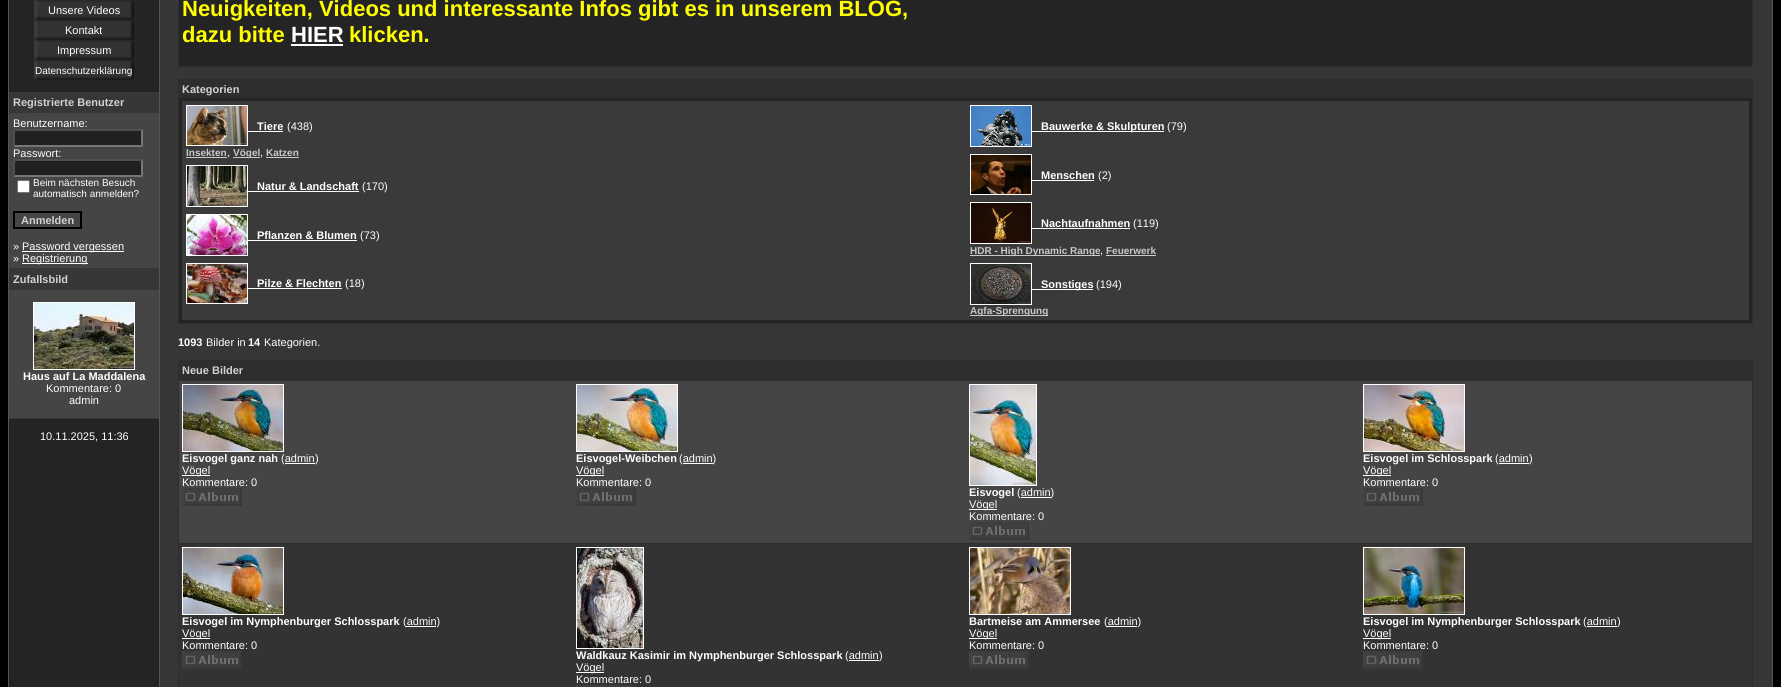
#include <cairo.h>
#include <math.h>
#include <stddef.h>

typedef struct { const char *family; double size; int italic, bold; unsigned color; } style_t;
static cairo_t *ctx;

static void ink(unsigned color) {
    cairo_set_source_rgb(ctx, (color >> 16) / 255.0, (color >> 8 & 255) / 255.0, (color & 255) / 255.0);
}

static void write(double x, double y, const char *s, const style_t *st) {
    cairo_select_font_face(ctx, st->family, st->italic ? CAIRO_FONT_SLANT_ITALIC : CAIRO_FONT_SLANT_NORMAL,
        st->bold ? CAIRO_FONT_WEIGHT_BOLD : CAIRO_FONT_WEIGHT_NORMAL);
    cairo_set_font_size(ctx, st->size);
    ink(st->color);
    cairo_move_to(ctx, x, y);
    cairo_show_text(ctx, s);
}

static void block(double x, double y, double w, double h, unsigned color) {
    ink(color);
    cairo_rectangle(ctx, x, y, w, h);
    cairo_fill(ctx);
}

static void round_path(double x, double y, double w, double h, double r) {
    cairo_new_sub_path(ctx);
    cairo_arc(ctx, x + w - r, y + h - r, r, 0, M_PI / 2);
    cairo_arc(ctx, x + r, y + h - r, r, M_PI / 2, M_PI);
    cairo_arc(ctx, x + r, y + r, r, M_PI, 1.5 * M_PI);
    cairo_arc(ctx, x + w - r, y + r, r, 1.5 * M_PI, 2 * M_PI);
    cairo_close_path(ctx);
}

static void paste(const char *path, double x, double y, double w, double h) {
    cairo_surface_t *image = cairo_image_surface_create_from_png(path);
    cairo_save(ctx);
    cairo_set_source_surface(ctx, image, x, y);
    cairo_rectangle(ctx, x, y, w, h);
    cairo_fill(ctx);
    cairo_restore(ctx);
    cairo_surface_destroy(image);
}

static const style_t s1 = {"Liberation Sans", 11, 0, 0, 0xffffff};
static const style_t s2 = {"Liberation Sans", 10, 0, 0, 0xffffff};
static const style_t s3 = {"Liberation Sans", 11, 0, 1, 0xd2d2d2};
static const style_t s4 = {"Liberation Sans", 11, 0, 1, 0xffffff};
static const style_t s5 = {"Liberation Sans", 22, 0, 1, 0xffff00};
static const style_t s6 = {"Liberation Sans", 22, 0, 1, 0xffffff};
static const style_t s7 = {"Liberation Sans", 10, 0, 1, 0xc9c9c9};

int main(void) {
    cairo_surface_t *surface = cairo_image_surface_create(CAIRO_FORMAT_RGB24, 1781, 687);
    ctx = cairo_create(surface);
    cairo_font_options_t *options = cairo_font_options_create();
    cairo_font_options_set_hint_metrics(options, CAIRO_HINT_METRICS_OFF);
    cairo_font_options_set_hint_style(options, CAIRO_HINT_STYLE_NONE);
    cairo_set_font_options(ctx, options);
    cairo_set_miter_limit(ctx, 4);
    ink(0x000000);
    cairo_paint(ctx);
    block(8, 0, 1765, 687, 0x555555);
    block(160, 0, 1612, 687, 0x363636);
    block(9, 0, 150, 687, 0x242424);
    paste("pic1.png", 34, 0, 100, 20);
    write(48, 14, "Unsere Videos", &s1);
    paste("pic1.png", 34, 20, 100, 20);
    write(65, 34, "Kontakt", &s1);
    paste("pic1.png", 34, 40, 100, 20);
    write(57, 54, "Impressum", &s1);
    paste("pic1.png", 34, 60, 100, 20);
    write(35, 74, "Datenschutzerklärung", &s2);
    block(9, 92, 150, 20, 0x373737);
    write(13, 106, "Registrierte Benutzer", &s3);
    block(9, 112, 150, 1, 0x363636);
    block(9, 113, 150, 155, 0x454545);
    write(13, 127, "Benutzername:", &s1);
    block(13, 129, 130, 18, 0x202020);
    ink(0x4f4f4f);
    cairo_new_path(ctx);
    cairo_move_to(ctx, 13, 129);
    cairo_line_to(ctx, 143, 129);
    cairo_line_to(ctx, 141, 131);
    cairo_line_to(ctx, 15, 131);
    cairo_close_path(ctx);
    cairo_fill(ctx);
    ink(0x767676);
    cairo_new_path(ctx);
    cairo_move_to(ctx, 143, 129);
    cairo_line_to(ctx, 143, 147);
    cairo_line_to(ctx, 141, 145);
    cairo_line_to(ctx, 141, 131);
    cairo_close_path(ctx);
    cairo_fill(ctx);
    cairo_new_path(ctx);
    cairo_move_to(ctx, 143, 147);
    cairo_line_to(ctx, 13, 147);
    cairo_line_to(ctx, 15, 145);
    cairo_line_to(ctx, 141, 145);
    cairo_close_path(ctx);
    cairo_fill(ctx);
    ink(0x4f4f4f);
    cairo_new_path(ctx);
    cairo_move_to(ctx, 13, 147);
    cairo_line_to(ctx, 13, 129);
    cairo_line_to(ctx, 15, 131);
    cairo_line_to(ctx, 15, 145);
    cairo_close_path(ctx);
    cairo_fill(ctx);
    write(13, 157, "Passwort:", &s1);
    block(13, 159, 130, 18, 0x202020);
    ink(0x4f4f4f);
    cairo_new_path(ctx);
    cairo_move_to(ctx, 13, 159);
    cairo_line_to(ctx, 143, 159);
    cairo_line_to(ctx, 141, 161);
    cairo_line_to(ctx, 15, 161);
    cairo_close_path(ctx);
    cairo_fill(ctx);
    ink(0x767676);
    cairo_new_path(ctx);
    cairo_move_to(ctx, 143, 159);
    cairo_line_to(ctx, 143, 177);
    cairo_line_to(ctx, 141, 175);
    cairo_line_to(ctx, 141, 161);
    cairo_close_path(ctx);
    cairo_fill(ctx);
    cairo_new_path(ctx);
    cairo_move_to(ctx, 143, 177);
    cairo_line_to(ctx, 13, 177);
    cairo_line_to(ctx, 15, 175);
    cairo_line_to(ctx, 141, 175);
    cairo_close_path(ctx);
    cairo_fill(ctx);
    ink(0x4f4f4f);
    cairo_new_path(ctx);
    cairo_move_to(ctx, 13, 177);
    cairo_line_to(ctx, 13, 159);
    cairo_line_to(ctx, 15, 161);
    cairo_line_to(ctx, 15, 175);
    cairo_close_path(ctx);
    cairo_fill(ctx);
    ink(0xffffff);
    round_path(17.5, 180.5, 12, 12, 1.5);
    cairo_fill_preserve(ctx);
    ink(0x767676);
    cairo_set_line_width(ctx, 1);
    cairo_stroke(ctx);
    write(33, 186, "Beim nächsten Besuch", &s2);
    write(33, 197, "automatisch anmelden?", &s2);
    cairo_rectangle(ctx, 14, 212, 67, 16);
    ink(0x000000);
    cairo_set_line_width(ctx, 2);
    cairo_stroke(ctx);
    write(21, 224, "Anmelden", &s3);
    write(13, 250, "»", &s1);
    block(22, 251, 102, 1, 0xffffff);
    write(22, 250, "Password vergessen", &s1);
    write(13, 262, "»", &s1);
    block(22, 263, 66, 1, 0xffffff);
    write(22, 262, "Registrierung", &s1);
    block(9, 268, 150, 1, 0x363636);
    block(9, 269, 150, 20, 0x373737);
    write(13, 283, "Zufallsbild", &s3);
    block(9, 289, 150, 1, 0x363636);
    block(9, 290, 150, 128, 0x454545);
    cairo_rectangle(ctx, 33.5, 302.5, 101, 67);
    ink(0xffffff);
    cairo_set_line_width(ctx, 1);
    cairo_stroke(ctx);
    paste("pic2.png", 34, 303, 100, 66);
    write(23, 380, "Haus auf La Maddalena", &s4);
    write(46, 392, "Kommentare: 0", &s1);
    write(69, 404, "admin", &s1);
    block(9, 418, 150, 1, 0x363636);
    write(40, 440, "10.11.2025, 11:36", &s1);
    block(178, 0, 1575, 67, 0x2e2e2e);
    block(179, 0, 1573, 66, 0x242424);
    write(182, 16, "Neuigkeiten, Videos und interessante Infos gibt es in unserem BLOG,", &s5);
    write(182, 42, "dazu bitte", &s5);
    write(291, 42, "HIER", &s6);
    block(291, 44, 52, 2, 0xffffff);
    write(349, 42, "klicken.", &s5);
    block(178, 79, 1575, 245, 0x2e2e2e);
    write(182, 93, "Kategorien", &s3);
    block(179, 98, 1573, 225, 0x242424);
    block(182, 101, 1567, 219, 0x3a3a3a);
    cairo_rectangle(ctx, 186.5, 105.5, 61, 40);
    ink(0xffffff);
    cairo_stroke(ctx);
    paste("pic3.png", 187, 106, 60, 39);
    write(257, 130, "Tiere", &s4);
    block(248, 131, 35, 1, 0xffffff);
    write(287, 130, "(438)", &s1);
    write(186, 156, "Insekten", &s7);
    block(186, 157, 41, 1, 0xc9c9c9);
    write(227, 156, ",", &s1);
    block(233, 157, 27, 1, 0xc9c9c9);
    write(233, 156, "Vögel", &s7);
    write(260, 156, ",", &s1);
    write(266, 156, "Katzen", &s7);
    block(266, 157, 33, 1, 0xc9c9c9);
    cairo_rectangle(ctx, 186.5, 165.5, 61, 41);
    ink(0xffffff);
    cairo_stroke(ctx);
    paste("pic4.png", 187, 166, 60, 40);
    write(257, 190, "Natur & Landschaft", &s4);
    block(248, 191, 111, 1, 0xffffff);
    write(362, 190, "(170)", &s1);
    cairo_rectangle(ctx, 186.5, 214.5, 61, 41);
    cairo_stroke(ctx);
    paste("pic5.png", 187, 215, 60, 40);
    write(257, 239, "Pflanzen & Blumen", &s4);
    block(248, 240, 109, 1, 0xffffff);
    write(360, 239, "(73)", &s1);
    cairo_rectangle(ctx, 186.5, 263.5, 61, 40);
    cairo_stroke(ctx);
    paste("pic6.png", 187, 264, 60, 39);
    write(257, 287, "Pilze & Flechten", &s4);
    block(248, 288, 94, 1, 0xffffff);
    write(345, 287, "(18)", &s1);
    cairo_rectangle(ctx, 970.5, 105.5, 61, 41);
    cairo_stroke(ctx);
    paste("pic7.png", 971, 106, 60, 40);
    block(1032, 131, 132, 1, 0xffffff);
    write(1041, 130, "Bauwerke & Skulpturen", &s4);
    write(1167, 130, "(79)", &s1);
    cairo_rectangle(ctx, 970.5, 154.5, 61, 40);
    cairo_stroke(ctx);
    paste("pic8.png", 971, 155, 60, 39);
    write(1041, 179, "Menschen", &s4);
    block(1032, 180, 62, 1, 0xffffff);
    write(1098, 179, "(2)", &s1);
    cairo_rectangle(ctx, 970.5, 202.5, 61, 41);
    cairo_stroke(ctx);
    paste("pic9.png", 971, 203, 60, 40);
    write(1041, 227, "Nachtaufnahmen", &s4);
    block(1032, 228, 98, 1, 0xffffff);
    write(1133, 227, "(119)", &s1);
    block(970, 255, 130, 1, 0xc9c9c9);
    write(970, 254, "HDR - High Dynamic Range", &s7);
    write(1100, 254, ",", &s1);
    write(1106, 254, "Feuerwerk", &s7);
    block(1106, 255, 50, 1, 0xc9c9c9);
    cairo_rectangle(ctx, 970.5, 263.5, 61, 41);
    ink(0xffffff);
    cairo_stroke(ctx);
    paste("pic10.png", 971, 264, 60, 40);
    block(1032, 289, 61, 1, 0xffffff);
    write(1041, 288, "Sonstiges", &s4);
    write(1096, 288, "(194)", &s1);
    block(970, 315, 78, 1, 0xc9c9c9);
    write(970, 314, "Agfa-Sprengung", &s7);
    write(178, 346, "1093", &s4);
    write(206, 346, "Bilder in", &s1);
    write(248, 346, "14", &s4);
    write(264, 346, "Kategorien.", &s1);
    block(178, 360, 1575, 327, 0x2e2e2e);
    write(182, 374, "Neue Bilder", &s3);
    block(179, 381, 1573, 162, 0x454545);
    cairo_rectangle(ctx, 182.5, 384.5, 101, 67);
    ink(0xffffff);
    cairo_stroke(ctx);
    paste("pic11.png", 183, 385, 100, 66);
    write(182, 462, "Eisvogel ganz nah", &s4);
    write(281, 462, "(admin", &s1);
    block(285, 463, 30, 1, 0xffffff);
    write(315, 462, ")", &s1);
    block(182, 475, 28, 1, 0xffffff);
    write(182, 474, "Vögel", &s1);
    write(182, 486, "Kommentare: 0", &s1);
    paste("pic12.png", 182, 488, 60, 18);
    cairo_rectangle(ctx, 576.5, 384.5, 101, 67);
    cairo_stroke(ctx);
    paste("pic13.png", 577, 385, 100, 66);
    write(576, 462, "Eisvogel-Weibchen", &s4);
    write(679, 462, "(admin)", &s1);
    block(683, 463, 30, 1, 0xffffff);
    block(576, 475, 28, 1, 0xffffff);
    write(576, 474, "Vögel", &s1);
    write(576, 486, "Kommentare: 0", &s1);
    paste("pic12.png", 576, 488, 60, 18);
    cairo_rectangle(ctx, 1363.5, 384.5, 101, 67);
    cairo_stroke(ctx);
    paste("pic14.png", 1364, 385, 100, 66);
    write(1363, 462, "Eisvogel im Schlosspark", &s4);
    write(1495, 462, "(admin", &s1);
    block(1499, 463, 30, 1, 0xffffff);
    write(1529, 462, ")", &s1);
    block(1363, 475, 28, 1, 0xffffff);
    write(1363, 474, "Vögel", &s1);
    write(1363, 486, "Kommentare: 0", &s1);
    paste("pic12.png", 1363, 488, 60, 18);
    cairo_rectangle(ctx, 969.5, 384.5, 67, 101);
    cairo_stroke(ctx);
    paste("pic15.png", 970, 385, 66, 100);
    write(969, 496, "Eisvogel", &s4);
    write(1017, 496, "(admin)", &s1);
    block(1021, 497, 30, 1, 0xffffff);
    block(969, 509, 28, 1, 0xffffff);
    write(969, 508, "Vögel", &s1);
    write(969, 520, "Kommentare: 0", &s1);
    paste("pic12.png", 969, 522, 60, 18);
    block(179, 544, 1573, 143, 0x333333);
    cairo_rectangle(ctx, 182.5, 547.5, 101, 67);
    ink(0xffffff);
    cairo_stroke(ctx);
    paste("pic16.png", 183, 548, 100, 66);
    write(182, 625, "Eisvogel im Nymphenburger Schlosspark", &s4);
    write(403, 625, "(admin)", &s1);
    block(406, 626, 30, 1, 0xffffff);
    block(182, 638, 28, 1, 0xffffff);
    write(182, 637, "Vögel", &s1);
    write(182, 649, "Kommentare: 0", &s1);
    paste("pic12.png", 182, 651, 60, 18);
    cairo_rectangle(ctx, 969.5, 547.5, 101, 67);
    cairo_stroke(ctx);
    paste("pic17.png", 970, 548, 100, 66);
    write(969, 625, "Bartmeise am Ammersee", &s4);
    write(1104, 625, "(admin)", &s1);
    block(1107, 626, 30, 1, 0xffffff);
    block(969, 638, 28, 1, 0xffffff);
    write(969, 637, "Vögel", &s1);
    write(969, 649, "Kommentare: 0", &s1);
    paste("pic12.png", 969, 651, 60, 18);
    cairo_rectangle(ctx, 1363.5, 547.5, 101, 67);
    cairo_stroke(ctx);
    paste("pic18.png", 1364, 548, 100, 66);
    write(1363, 625, "Eisvogel im Nymphenburger Schlosspark", &s4);
    write(1583, 625, "(admin", &s1);
    block(1587, 626, 30, 1, 0xffffff);
    write(1617, 625, ")", &s1);
    block(1363, 638, 28, 1, 0xffffff);
    write(1363, 637, "Vögel", &s1);
    write(1363, 649, "Kommentare: 0", &s1);
    paste("pic12.png", 1363, 651, 60, 18);
    cairo_rectangle(ctx, 576.5, 547.5, 67, 101);
    cairo_stroke(ctx);
    paste("pic19.png", 577, 548, 66, 100);
    write(576, 659, "Waldkauz Kasimir im Nymphenburger Schlosspark", &s4);
    write(845, 659, "(admin", &s1);
    block(849, 660, 30, 1, 0xffffff);
    write(879, 659, ")", &s1);
    block(576, 672, 28, 1, 0xffffff);
    write(576, 671, "Vögel", &s1);
    write(576, 683, "Kommentare: 0", &s1);
    paste("pic20.png", 576, 685, 60, 2);
    cairo_surface_write_to_png(surface, "screenshot.png");
    cairo_font_options_destroy(options);
    cairo_destroy(ctx);
    cairo_surface_destroy(surface);
    return 0;
}
